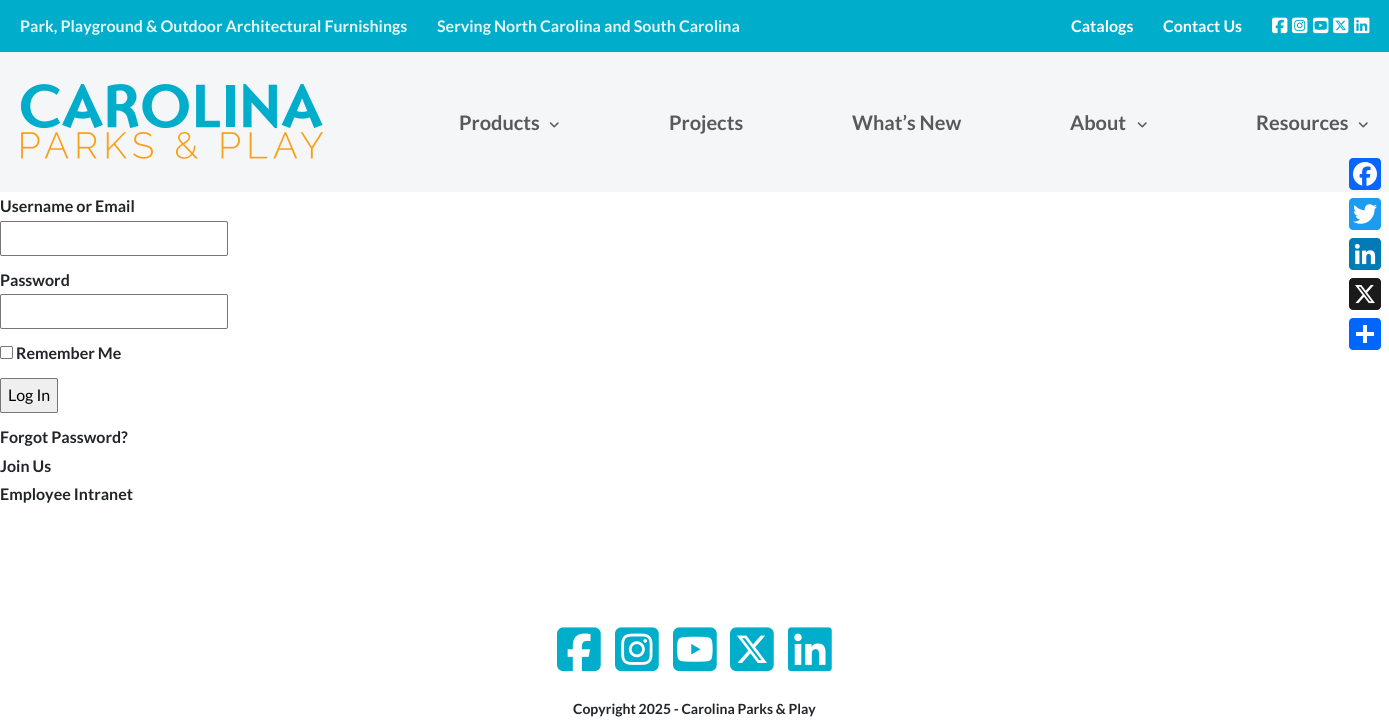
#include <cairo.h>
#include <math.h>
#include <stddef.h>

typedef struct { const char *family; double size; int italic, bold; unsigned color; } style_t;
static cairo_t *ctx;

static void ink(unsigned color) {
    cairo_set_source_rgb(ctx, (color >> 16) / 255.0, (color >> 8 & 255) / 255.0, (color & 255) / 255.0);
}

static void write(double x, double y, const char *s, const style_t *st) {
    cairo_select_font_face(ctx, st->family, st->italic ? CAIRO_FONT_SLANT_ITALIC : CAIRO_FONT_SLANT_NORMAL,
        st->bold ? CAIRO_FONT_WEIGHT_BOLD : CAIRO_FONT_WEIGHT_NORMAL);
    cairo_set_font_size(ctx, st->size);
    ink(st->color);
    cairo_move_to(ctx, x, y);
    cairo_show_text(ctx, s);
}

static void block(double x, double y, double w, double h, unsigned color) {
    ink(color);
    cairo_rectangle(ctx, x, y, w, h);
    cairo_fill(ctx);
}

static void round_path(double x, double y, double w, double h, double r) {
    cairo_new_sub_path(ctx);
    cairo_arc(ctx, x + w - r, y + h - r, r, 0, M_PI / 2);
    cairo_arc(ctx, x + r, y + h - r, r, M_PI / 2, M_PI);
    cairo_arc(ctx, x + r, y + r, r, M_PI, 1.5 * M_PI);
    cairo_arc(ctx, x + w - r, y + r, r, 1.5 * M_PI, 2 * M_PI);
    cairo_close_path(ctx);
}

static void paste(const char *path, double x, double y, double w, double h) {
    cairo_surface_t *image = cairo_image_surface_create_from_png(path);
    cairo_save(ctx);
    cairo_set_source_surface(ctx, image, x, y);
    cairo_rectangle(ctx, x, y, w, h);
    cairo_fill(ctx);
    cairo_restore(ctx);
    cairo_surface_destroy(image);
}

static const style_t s1 = {"Lato", 16, 0, 1, 0xe6f7fa};
static const style_t s2 = {"Lato", 16, 0, 1, 0xffffff};
static const style_t s3 = {"Lato", 20, 0, 1, 0x595959};
static const style_t s4 = {"Lato", 16, 0, 1, 0x212529};
static const style_t s5 = {"Lato", 16, 0, 0, 0x000000};
static const style_t s6 = {"Lato", 14, 0, 1, 0x212529};

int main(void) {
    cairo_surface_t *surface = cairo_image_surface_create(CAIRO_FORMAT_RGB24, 1389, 723);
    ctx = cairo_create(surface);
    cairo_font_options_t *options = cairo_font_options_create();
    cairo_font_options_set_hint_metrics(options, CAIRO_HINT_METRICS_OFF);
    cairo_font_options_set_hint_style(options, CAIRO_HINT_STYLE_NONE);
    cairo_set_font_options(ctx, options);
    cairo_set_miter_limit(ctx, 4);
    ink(0xffffff);
    cairo_paint(ctx);
    block(0, 52, 1389, 140, 0xf5f6f8);
    block(0, 0, 1389, 52, 0x00adca);
    write(20, 32, "Park, Playground & Outdoor Architectural Furnishings", &s1);
    write(437, 32, "Serving North Carolina and South Carolina", &s1);
    write(1071, 32, "Catalogs", &s2);
    write(1163, 32, "Contact Us", &s2);
    paste("pic1.png", 1272, 17, 16, 17);
    paste("pic2.png", 1292, 17, 16, 17);
    paste("pic3.png", 1313, 17, 16, 17);
    paste("pic4.png", 1333, 17, 16, 17);
    paste("pic5.png", 1354, 17, 16, 17);
    paste("pic6.png", 20, 84, 303, 75);
    write(459, 130, "Products", &s3);
    paste("pic7.png", 549, 122, 10, 6);
    write(669, 130, "Projects", &s3);
    write(852, 130, "What’s New", &s3);
    write(1070, 130, "About", &s3);
    paste("pic7.png", 1137, 122, 10, 6);
    write(1256, 130, "Resources", &s3);
    paste("pic7.png", 1358, 122, 10, 6);
    write(0, 212, "Username or Email", &s4);
    round_path(0.5, 221.5, 227, 34, 1.5);
    ink(0x767676);
    cairo_set_line_width(ctx, 1);
    cairo_stroke(ctx);
    write(0, 286, "Password", &s4);
    round_path(0.5, 294.5, 227, 34, 1.5);
    ink(0x767676);
    cairo_stroke(ctx);
    round_path(0.5, 346.5, 12, 12, 1.5);
    cairo_stroke(ctx);
    write(16, 359, "Remember Me", &s4);
    ink(0xefefef);
    round_path(0.5, 378.5, 57, 34, 1.5);
    cairo_fill_preserve(ctx);
    ink(0x767676);
    cairo_stroke(ctx);
    write(8, 401, "Log In", &s5);
    write(0, 443, "Forgot Password?", &s4);
    write(0, 472, "Join Us", &s4);
    write(0, 500, "Employee Intranet", &s4);
    paste("pic8.png", 557, 627, 44, 45);
    paste("pic9.png", 615, 627, 44, 45);
    paste("pic10.png", 673, 627, 44, 45);
    paste("pic11.png", 730, 627, 44, 45);
    paste("pic12.png", 788, 627, 44, 45);
    write(573, 714, "Copyright 2025 - Carolina Parks & Play", &s6);
    ink(0x0866ff);
    round_path(1349, 158, 32, 32, 4);
    cairo_fill(ctx);
    paste("pic13.png", 1353, 162, 24, 24);
    ink(0x1d9bf0);
    round_path(1349, 198, 32, 32, 4);
    cairo_fill(ctx);
    paste("pic14.png", 1353, 204, 24, 20);
    ink(0x007bb5);
    round_path(1349, 238, 32, 32, 4);
    cairo_fill(ctx);
    paste("pic15.png", 1354, 243, 22, 22);
    ink(0x1a1a1a);
    round_path(1349, 278, 32, 32, 4);
    cairo_fill(ctx);
    paste("pic16.png", 1355, 285, 20, 19);
    ink(0x0166ff);
    round_path(1349, 318, 32, 32, 4);
    cairo_fill(ctx);
    block(1363, 325, 4, 18, 0xffffff);
    block(1356, 332, 18, 4, 0xffffff);
    cairo_surface_write_to_png(surface, "screenshot.png");
    cairo_font_options_destroy(options);
    cairo_destroy(ctx);
    cairo_surface_destroy(surface);
    return 0;
}
